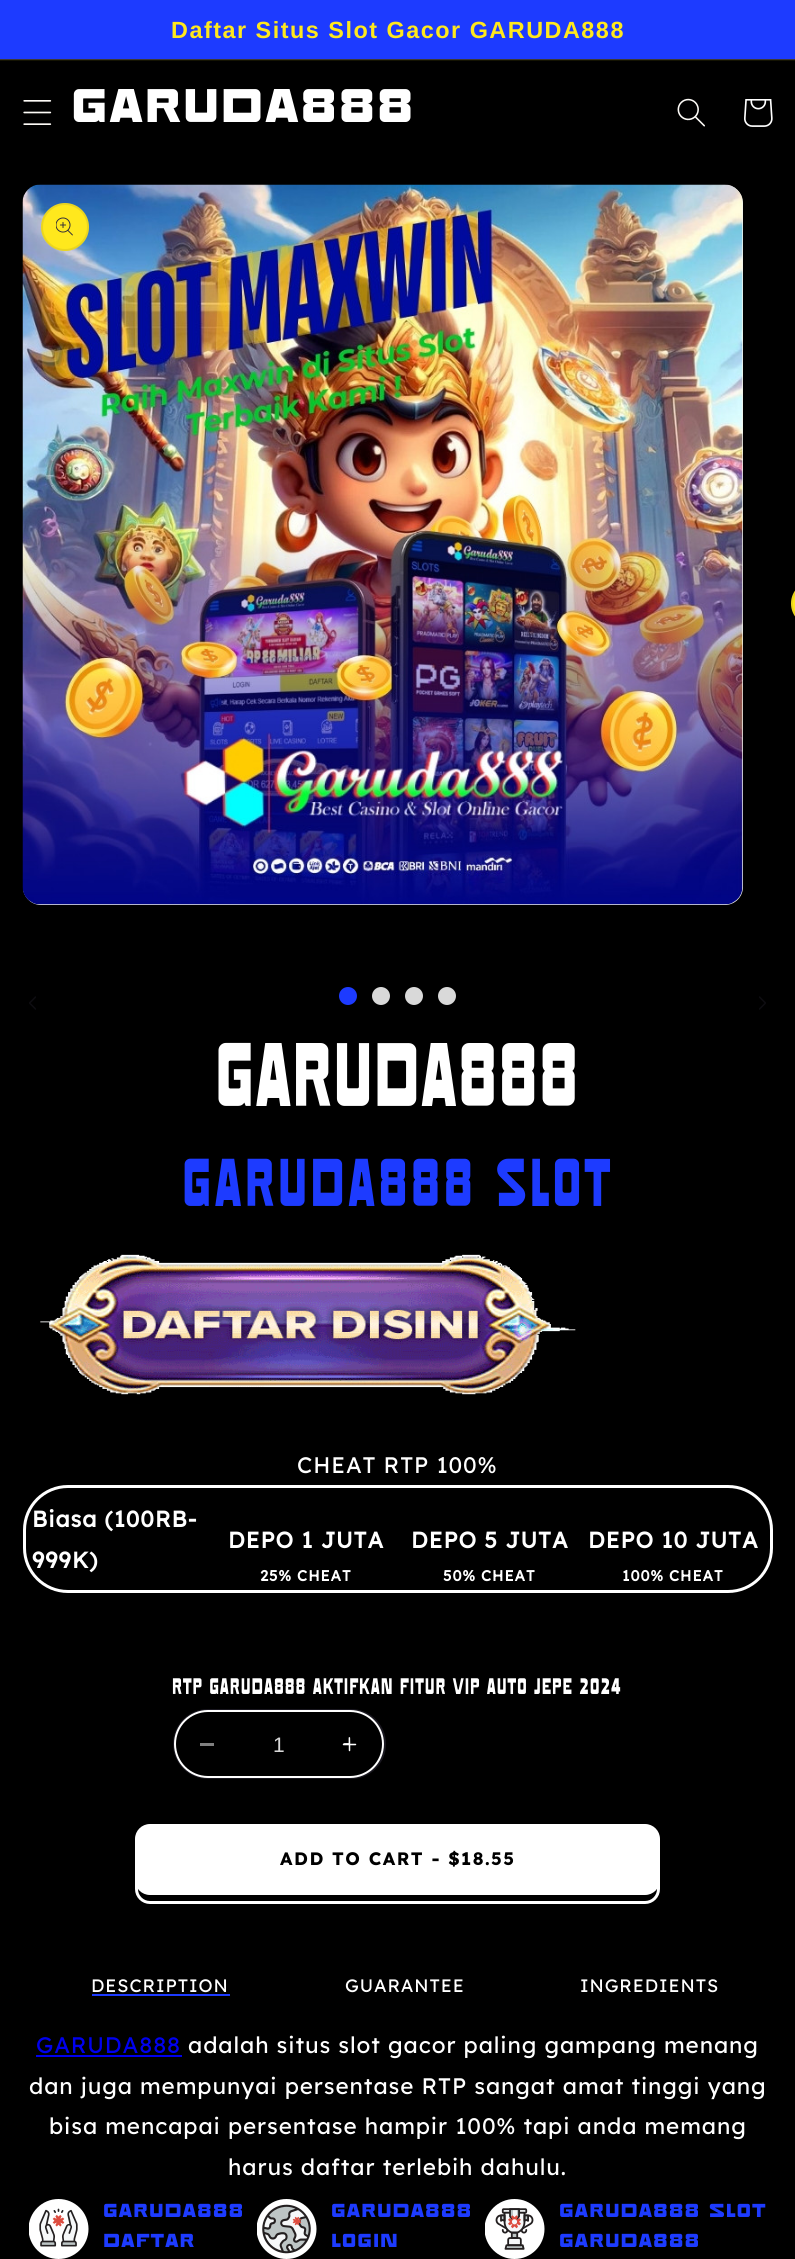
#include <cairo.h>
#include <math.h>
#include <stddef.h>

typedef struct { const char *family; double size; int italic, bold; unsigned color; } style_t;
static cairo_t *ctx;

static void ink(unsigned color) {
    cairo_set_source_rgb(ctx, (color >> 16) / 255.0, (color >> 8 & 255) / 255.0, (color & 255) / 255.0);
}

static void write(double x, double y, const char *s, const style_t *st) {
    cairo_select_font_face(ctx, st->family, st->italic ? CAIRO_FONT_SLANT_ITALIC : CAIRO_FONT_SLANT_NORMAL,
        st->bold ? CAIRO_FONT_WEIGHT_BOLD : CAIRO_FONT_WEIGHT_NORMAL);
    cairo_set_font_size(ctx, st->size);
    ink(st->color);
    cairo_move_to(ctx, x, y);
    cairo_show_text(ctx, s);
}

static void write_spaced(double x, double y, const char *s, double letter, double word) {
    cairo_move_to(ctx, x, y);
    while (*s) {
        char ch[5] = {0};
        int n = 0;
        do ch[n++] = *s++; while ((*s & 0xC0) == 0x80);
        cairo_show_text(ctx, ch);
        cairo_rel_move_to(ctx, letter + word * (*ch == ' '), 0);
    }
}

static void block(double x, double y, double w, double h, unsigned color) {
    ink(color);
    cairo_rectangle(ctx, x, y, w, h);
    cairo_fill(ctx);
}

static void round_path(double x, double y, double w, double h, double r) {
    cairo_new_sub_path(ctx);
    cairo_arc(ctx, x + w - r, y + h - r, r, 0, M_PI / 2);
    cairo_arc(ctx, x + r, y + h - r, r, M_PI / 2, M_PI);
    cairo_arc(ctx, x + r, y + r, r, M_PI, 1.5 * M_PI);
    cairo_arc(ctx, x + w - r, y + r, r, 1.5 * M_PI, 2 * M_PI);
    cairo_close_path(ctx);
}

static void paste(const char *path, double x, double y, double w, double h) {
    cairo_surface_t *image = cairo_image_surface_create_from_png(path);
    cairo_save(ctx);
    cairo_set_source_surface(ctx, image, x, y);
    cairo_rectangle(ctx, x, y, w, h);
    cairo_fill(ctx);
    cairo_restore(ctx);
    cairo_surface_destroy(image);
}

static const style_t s1 = {"Liberation Sans", 21, 0, 0, 0xd9d9d9};

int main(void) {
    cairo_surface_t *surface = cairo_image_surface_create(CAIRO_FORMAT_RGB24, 795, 2259);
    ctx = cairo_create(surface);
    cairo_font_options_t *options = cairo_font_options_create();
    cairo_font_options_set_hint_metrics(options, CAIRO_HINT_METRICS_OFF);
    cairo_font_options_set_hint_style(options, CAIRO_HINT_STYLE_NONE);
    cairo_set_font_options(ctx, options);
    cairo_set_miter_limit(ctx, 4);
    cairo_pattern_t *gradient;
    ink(0x000000);
    cairo_paint(ctx);
    block(0, 59, 795, 1, 0x3f3937);
    block(0, 0, 795, 59, 0x1d3bff);
    cairo_select_font_face(ctx, "Liberation Sans", CAIRO_FONT_SLANT_NORMAL, CAIRO_FONT_WEIGHT_BOLD);
    cairo_set_font_size(ctx, 23.4);
    ink(0xffe81d);
    write_spaced(171, 38, "Daftar Situs Slot Gacor GARUDA888", 1.5, 0);
    block(0, 60, 795, 1, 0x141302);
    paste("pic1.png", 23, 100, 29, 25);
    cairo_select_font_face(ctx, "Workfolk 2", CAIRO_FONT_SLANT_NORMAL, CAIRO_FONT_WEIGHT_NORMAL);
    cairo_set_font_size(ctx, 75);
    ink(0xffffff);
    write_spaced(71, 122, "GARUDA888", 1.25, 0);
    paste("pic2.png", 677, 98, 28, 29);
    paste("pic3.png", 744, 99, 29, 28);
    gradient = cairo_pattern_create_linear(397, 0, 398, 2259);
    cairo_pattern_add_color_stop_rgba(gradient, 0, 0.941, 0.957, 0.925, 1);
    cairo_pattern_add_color_stop_rgba(gradient, 1, 0.945, 0.922, 0.886, 1);
    cairo_set_source(ctx, gradient);
    cairo_pattern_destroy(gradient);
    round_path(23, 185, 720, 720, 18);
    cairo_fill(ctx);
    paste("pic4.png", 22, 184, 721, 721);
    ink(0xffe81d);
    cairo_arc(ctx, 65, 227, 24, 0, 2 * M_PI);
    cairo_fill(ctx);
    cairo_arc(ctx, 65, 227, 23, 0, 2 * M_PI);
    cairo_set_source_rgba(ctx, 0.18, 0.165, 0.224, 0.1);
    cairo_stroke(ctx);
    paste("pic5.png", 56, 217, 17, 19);
    ink(0xffe81d);
    cairo_new_path(ctx);
    cairo_move_to(ctx, 813.5, 581);
    cairo_line_to(ctx, 795, 581);
    cairo_line_to(ctx, 795, 626);
    cairo_line_to(ctx, 813.5, 626);
    cairo_curve_to(ctx, 801, 626, 791, 616, 791, 603.5);
    cairo_curve_to(ctx, 791, 591, 801, 581, 813.5, 581);
    cairo_close_path(ctx);
    cairo_fill(ctx);
    round_path(792, 582, 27, 43, 21.5);
    cairo_set_source_rgba(ctx, 0.18, 0.165, 0.224, 0.1);
    cairo_stroke(ctx);
    paste("pic6.png", 29, 996, 7, 14);
    ink(0x1d3bff);
    cairo_arc(ctx, 348, 996, 9, 0, 2 * M_PI);
    cairo_fill(ctx);
    ink(0xd9d9d9);
    cairo_arc(ctx, 381, 996, 9, 0, 2 * M_PI);
    cairo_fill(ctx);
    cairo_arc(ctx, 414, 996, 9, 0, 2 * M_PI);
    cairo_fill(ctx);
    cairo_arc(ctx, 447, 996, 9, 0, 2 * M_PI);
    cairo_fill(ctx);
    paste("pic7.png", 759, 996, 7, 14);
    cairo_select_font_face(ctx, "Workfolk", CAIRO_FONT_SLANT_NORMAL, CAIRO_FONT_WEIGHT_NORMAL);
    cairo_set_font_size(ctx, 90);
    ink(0xffffff);
    write_spaced(215, 1106, "GARUDA888", 0.9, 0);
    cairo_set_font_size(ctx, 67.5);
    ink(0x1d3bff);
    write_spaced(182, 1206, "GARUDA888 SLOT", 3, 0);
    paste("pic8.png", 40, 1254, 536, 141);
    cairo_select_font_face(ctx, "Lexend Deca", CAIRO_FONT_SLANT_NORMAL, CAIRO_FONT_WEIGHT_NORMAL);
    cairo_set_font_size(ctx, 22.5);
    ink(0xffffff);
    write_spaced(297, 1473, "CHEAT RTP 100%", 0.9, 0);
    round_path(24.5, 1486.5, 747, 105, 43.5);
    cairo_set_line_width(ctx, 3);
    cairo_stroke(ctx);
    cairo_select_font_face(ctx, "Lexend Deca", CAIRO_FONT_SLANT_NORMAL, CAIRO_FONT_WEIGHT_BOLD);
    write_spaced(32, 1527, "Biasa (100RB-", 0.9, 0);
    write_spaced(32, 1568, "999K)", 0.9, 0);
    write_spaced(228, 1548, "DEPO 1 JUTA", 0.9, 0);
    cairo_set_font_size(ctx, 15);
    write_spaced(260, 1581, "25% CHEAT", 0.9, 0);
    cairo_set_font_size(ctx, 22.5);
    write_spaced(411, 1548, "DEPO 5 JUTA", 0.9, 0);
    cairo_set_font_size(ctx, 15);
    write_spaced(443, 1581, "50% CHEAT", 0.9, 0);
    cairo_set_font_size(ctx, 22.5);
    write_spaced(588, 1548, "DEPO 10 JUTA", 0.9, 0);
    cairo_set_font_size(ctx, 15);
    write_spaced(622, 1581, "100% CHEAT", 0.9, 0);
    cairo_select_font_face(ctx, "Workfolk", CAIRO_FONT_SLANT_NORMAL, CAIRO_FONT_WEIGHT_NORMAL);
    cairo_set_font_size(ctx, 22.5);
    write_spaced(172, 1694, "RTP GARUDA888 Aktifkan Fitur VIP auto JEPE 2024", 0.9, 0);
    block(200, 1743, 14, 3, 0x808080);
    paste("pic9.png", 342, 1737, 15, 15);
    round_path(174, 1710, 211, 68, 34);
    ink(0x19171f);
    cairo_set_line_width(ctx, 2);
    cairo_stroke(ctx);
    round_path(175, 1711, 208, 66, 33);
    ink(0xffffff);
    cairo_stroke(ctx);
    write(273, 1752, "1", &s1);
    round_path(136.5, 1834.5, 522, 68, 13.5);
    ink(0xffffff);
    cairo_set_line_width(ctx, 3);
    cairo_stroke(ctx);
    round_path(135, 1824, 525, 71, 15);
    cairo_fill(ctx);
    cairo_select_font_face(ctx, "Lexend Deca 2", CAIRO_FONT_SLANT_NORMAL, CAIRO_FONT_WEIGHT_BOLD);
    cairo_set_font_size(ctx, 18);
    ink(0x000000);
    write_spaced(280, 1865, "ADD TO CART - $18.55", 1.5, 0);
    cairo_select_font_face(ctx, "Lexend Deca", CAIRO_FONT_SLANT_NORMAL, CAIRO_FONT_WEIGHT_NORMAL);
    ink(0xffffff);
    write_spaced(91, 1992, "DESCRIPTION", 0.9, 0);
    block(92, 1994, 138, 2, 0x1d3bff);
    ink(0xffffff);
    write_spaced(345, 1992, "GUARANTEE", 0.9, 0);
    write_spaced(580, 1992, "INGREDIENTS", 0.9, 0);
    cairo_set_font_size(ctx, 22.5);
    ink(0x0000ee);
    write_spaced(36, 2053, "GARUDA888", 0.9, 0);
    block(36, 2055, 146, 2, 0x0000ee);
    ink(0xffffff);
    write_spaced(188, 2053, "adalah situs slot gacor paling gampang menang", 0.9, 0);
    write_spaced(29, 2094, "dan juga mempunyai persentase RTP sangat amat tinggi yang", 0.9, 0);
    write_spaced(49, 2134, "bisa mencapai persentase hampir 100% tapi anda memang", 0.9, 0);
    write_spaced(228, 2175, "harus daftar terlebih dahulu.", 0.9, 0);
    paste("pic10.png", 29, 2199, 60, 60);
    cairo_select_font_face(ctx, "Workfolk 2", CAIRO_FONT_SLANT_NORMAL, CAIRO_FONT_WEIGHT_NORMAL);
    cairo_set_font_size(ctx, 30);
    ink(0x1d3bff);
    write_spaced(103, 2217, "GARUDA888", 0.9, 0);
    write_spaced(103, 2247, "DAFTAR", 0.9, 0);
    paste("pic11.png", 257, 2199, 60, 60);
    write_spaced(331, 2217, "GARUDA888", 0.9, 0);
    write_spaced(331, 2247, "LOGIN", 0.9, 0);
    paste("pic12.png", 485, 2199, 60, 60);
    write_spaced(559, 2217, "GARUDA888 SLOT", 0.9, 0);
    write_spaced(559, 2247, "GARUDA888", 0.9, 0);
    cairo_surface_write_to_png(surface, "screenshot.png");
    cairo_font_options_destroy(options);
    cairo_destroy(ctx);
    cairo_surface_destroy(surface);
    return 0;
}
